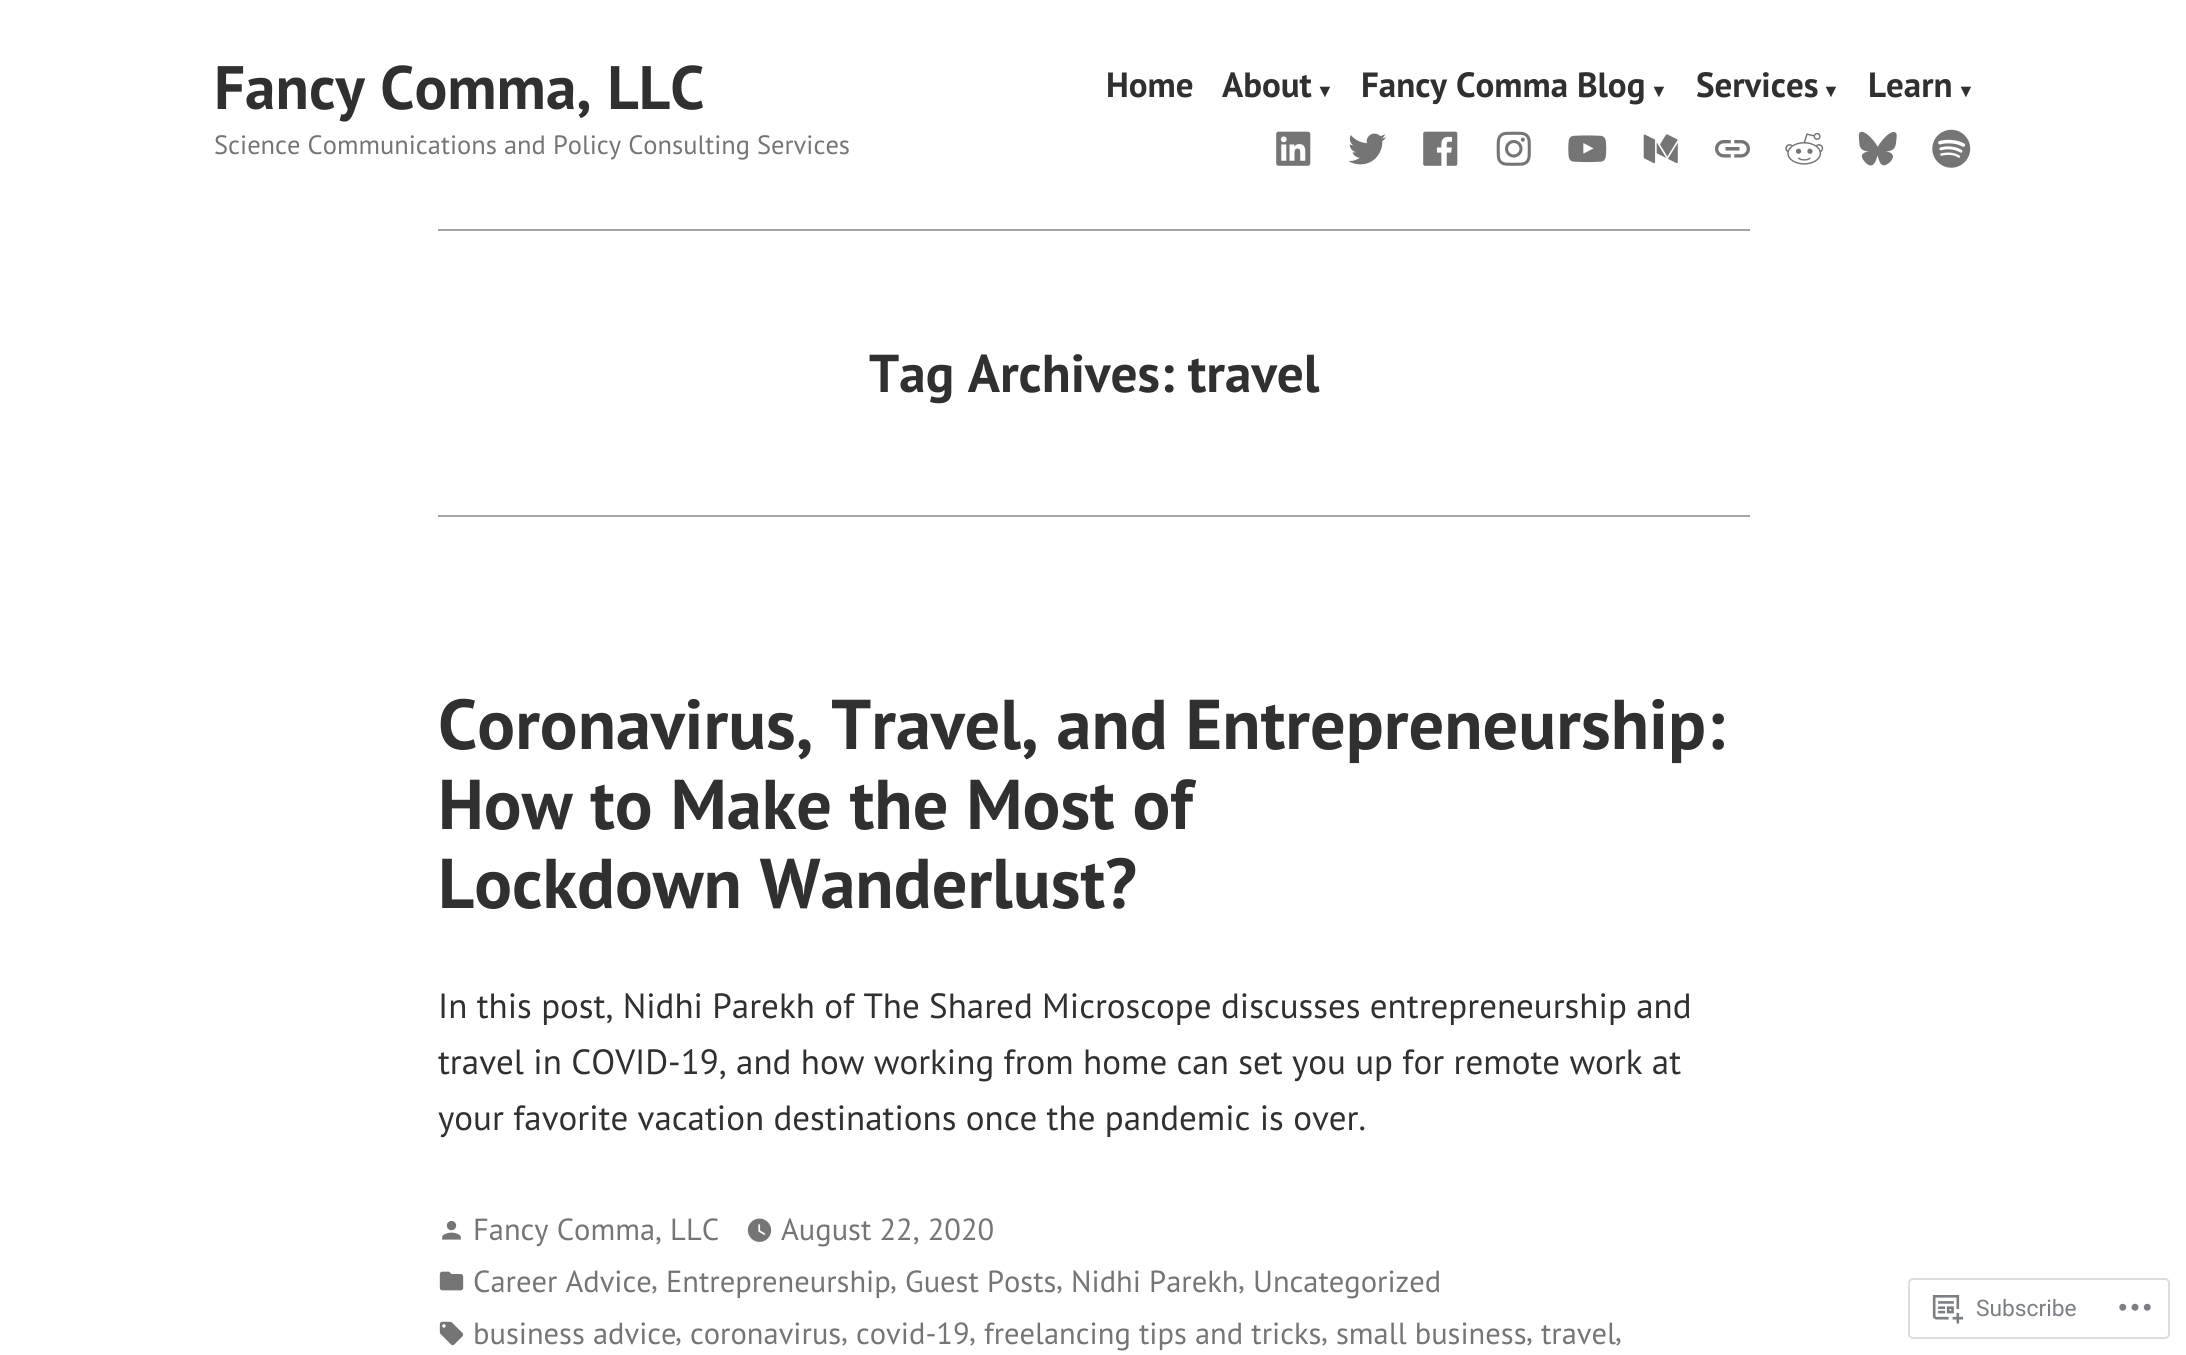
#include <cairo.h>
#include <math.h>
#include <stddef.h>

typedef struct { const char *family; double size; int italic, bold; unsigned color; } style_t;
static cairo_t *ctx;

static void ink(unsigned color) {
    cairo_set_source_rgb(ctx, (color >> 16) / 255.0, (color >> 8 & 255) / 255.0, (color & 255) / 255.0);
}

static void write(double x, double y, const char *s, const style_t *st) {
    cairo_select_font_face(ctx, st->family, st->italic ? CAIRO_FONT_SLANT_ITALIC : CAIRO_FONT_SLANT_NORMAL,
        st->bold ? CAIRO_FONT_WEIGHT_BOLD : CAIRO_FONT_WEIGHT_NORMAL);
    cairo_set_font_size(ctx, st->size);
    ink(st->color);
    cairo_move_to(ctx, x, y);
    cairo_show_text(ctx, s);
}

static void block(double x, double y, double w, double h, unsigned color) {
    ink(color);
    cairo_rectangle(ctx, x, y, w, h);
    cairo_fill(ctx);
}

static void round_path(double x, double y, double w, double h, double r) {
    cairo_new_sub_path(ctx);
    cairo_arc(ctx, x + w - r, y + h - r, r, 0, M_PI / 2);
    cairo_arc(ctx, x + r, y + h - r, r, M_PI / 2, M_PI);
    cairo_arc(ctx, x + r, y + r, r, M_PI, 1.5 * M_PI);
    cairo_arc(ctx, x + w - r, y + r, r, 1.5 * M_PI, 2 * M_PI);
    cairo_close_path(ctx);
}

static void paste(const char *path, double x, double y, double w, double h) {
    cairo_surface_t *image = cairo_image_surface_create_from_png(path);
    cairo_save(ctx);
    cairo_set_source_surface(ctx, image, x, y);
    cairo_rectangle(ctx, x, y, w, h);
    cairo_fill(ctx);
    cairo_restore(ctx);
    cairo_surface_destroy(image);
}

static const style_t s1 = {"PT Sans", 61.25, 0, 1, 0x303030};
static const style_t s2 = {"PT Sans", 35, 0, 1, 0x303030};
static const style_t s3 = {"Liberation Sans", 18, 0, 1, 0x303030};
static const style_t s4 = {"PT Sans", 26.5, 0, 0, 0x757575};
static const style_t s5 = {"PT Sans", 53.25, 0, 1, 0x303030};
static const style_t s6 = {"PT Sans", 70.4, 0, 1, 0x303030};
static const style_t s7 = {"PT Sans", 35, 0, 0, 0x303030};
static const style_t s8 = {"PT Sans", 30.5, 0, 0, 0x757575};
static const style_t s9 = {"Roboto", 22.75, 0, 0, 0x7b7f85};

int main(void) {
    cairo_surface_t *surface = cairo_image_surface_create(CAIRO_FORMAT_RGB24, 2186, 1355);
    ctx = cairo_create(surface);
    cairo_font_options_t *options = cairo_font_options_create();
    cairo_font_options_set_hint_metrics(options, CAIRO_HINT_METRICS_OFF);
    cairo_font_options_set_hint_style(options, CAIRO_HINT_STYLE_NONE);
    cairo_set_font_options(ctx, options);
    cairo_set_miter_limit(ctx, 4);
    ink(0xffffff);
    cairo_paint(ctx);
    write(214, 109, "Fancy Comma, LLC", &s1);
    write(1106, 97, "Home", &s2);
    write(1222, 97, "About", &s2);
    write(1316, 97, "▼", &s3);
    write(1361, 97, "Fancy Comma Blog", &s2);
    write(1650, 97, "▼", &s3);
    write(1696, 97, "Services", &s2);
    write(1822, 97, "▼", &s3);
    write(1868, 97, "Learn", &s2);
    write(1957, 97, "▼", &s3);
    write(214, 154, "Science Communications and Policy Consulting Services", &s4);
    paste("pic1.png", 1276, 131, 35, 35);
    paste("pic2.png", 1348, 133, 38, 32);
    paste("pic3.png", 1423, 131, 35, 35);
    paste("pic4.png", 1496, 131, 35, 35);
    paste("pic5.png", 1568, 135, 39, 28);
    paste("pic6.png", 1643, 134, 35, 30);
    paste("pic7.png", 1715, 140, 35, 18);
    paste("pic8.png", 1785, 132, 39, 33);
    paste("pic9.png", 1858, 131, 39, 35);
    paste("pic10.png", 1932, 129, 39, 39);
    block(438, 229, 1312, 2, 0xa5a5a5);
    write(869, 392, "Tag Archives: travel", &s5);
    block(438, 515, 1312, 2, 0xa5a5a5);
    write(438, 749, "Coronavirus, Travel, and Entrepreneurship:", &s6);
    write(438, 829, "How to Make the Most of", &s6);
    write(438, 908, "Lockdown Wanderlust?", &s6);
    write(438, 1018, "In this post, Nidhi Parekh of The Shared Microscope discusses entrepreneurship and", &s7);
    write(438, 1074, "travel in COVID-19, and how working from home can set you up for remote work at", &s7);
    write(438, 1130, "your favorite vacation destinations once the pandemic is over.", &s7);
    paste("pic11.png", 442, 1220, 19, 20);
    write(473, 1240, "Fancy Comma, LLC", &s8);
    paste("pic12.png", 747, 1218, 25, 24);
    write(781, 1240, "August 22, 2020", &s8);
    paste("pic13.png", 439, 1271, 25, 20);
    write(473, 1292, "Career Advice", &s8);
    write(651, 1289, ",", &s8);
    write(666, 1292, "Entrepreneurship", &s8);
    write(890, 1289, ",", &s8);
    write(905, 1292, "Guest Posts", &s8);
    write(1056, 1289, ",", &s8);
    write(1071, 1292, "Nidhi Parekh", &s8);
    write(1238, 1289, ",", &s8);
    write(1253, 1292, "Uncategorized", &s8);
    paste("pic14.png", 439, 1321, 25, 25);
    write(473, 1344, "business advice", &s8);
    write(675, 1341, ",", &s8);
    write(690, 1344, "coronavirus", &s8);
    write(841, 1341, ",", &s8);
    write(856, 1344, "covid-19", &s8);
    write(969, 1341, ",", &s8);
    write(984, 1344, "freelancing tips and tricks", &s8);
    write(1321, 1341, ",", &s8);
    write(1336, 1344, "small business", &s8);
    write(1526, 1341, ",", &s8);
    write(1541, 1344, "travel", &s8);
    write(1615, 1341, ",", &s8);
    round_path(1909, 1279, 260, 59, 4);
    ink(0xdddddf);
    cairo_stroke(ctx);
    paste("pic15.png", 1932, 1295, 32, 29);
    write(1976, 1316, "Subscribe", &s9);
    paste("pic16.png", 2119, 1303, 32, 8);
    cairo_surface_write_to_png(surface, "screenshot.png");
    cairo_font_options_destroy(options);
    cairo_destroy(ctx);
    cairo_surface_destroy(surface);
    return 0;
}
